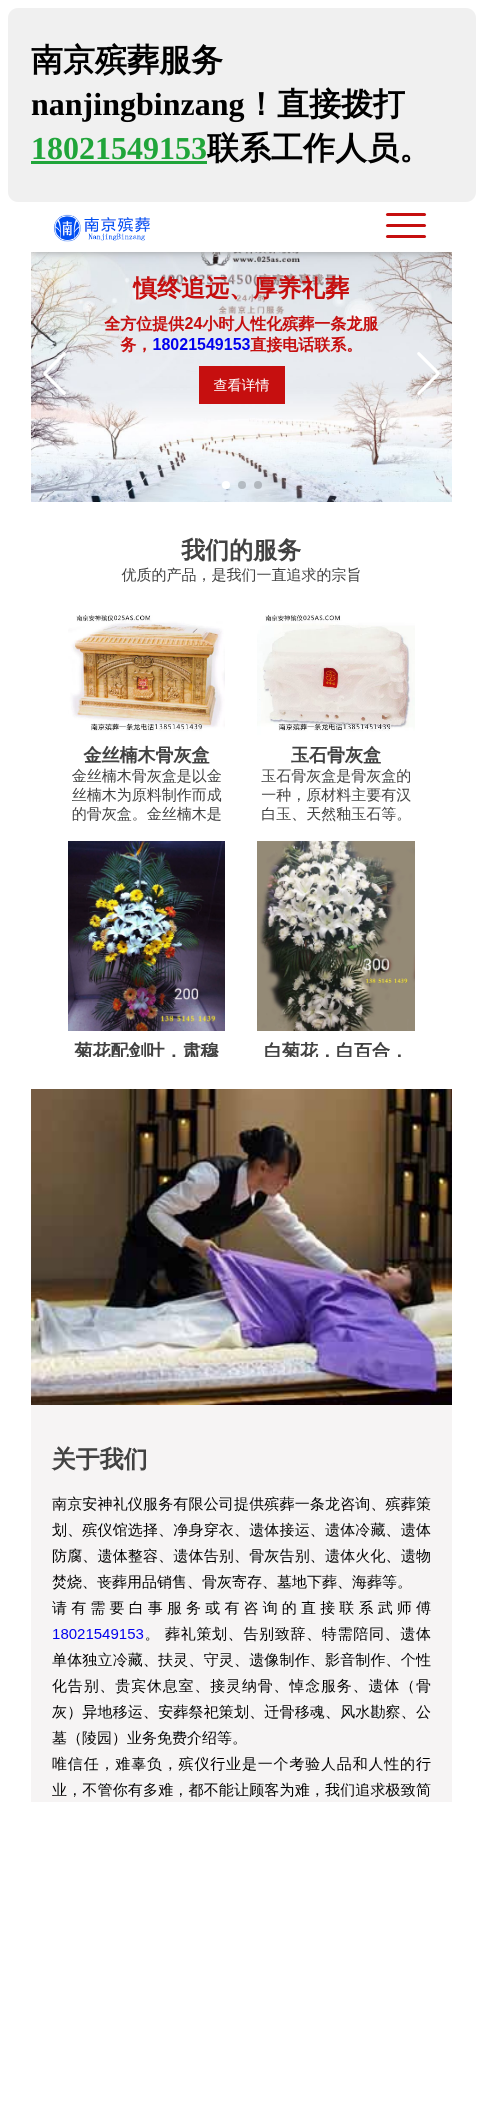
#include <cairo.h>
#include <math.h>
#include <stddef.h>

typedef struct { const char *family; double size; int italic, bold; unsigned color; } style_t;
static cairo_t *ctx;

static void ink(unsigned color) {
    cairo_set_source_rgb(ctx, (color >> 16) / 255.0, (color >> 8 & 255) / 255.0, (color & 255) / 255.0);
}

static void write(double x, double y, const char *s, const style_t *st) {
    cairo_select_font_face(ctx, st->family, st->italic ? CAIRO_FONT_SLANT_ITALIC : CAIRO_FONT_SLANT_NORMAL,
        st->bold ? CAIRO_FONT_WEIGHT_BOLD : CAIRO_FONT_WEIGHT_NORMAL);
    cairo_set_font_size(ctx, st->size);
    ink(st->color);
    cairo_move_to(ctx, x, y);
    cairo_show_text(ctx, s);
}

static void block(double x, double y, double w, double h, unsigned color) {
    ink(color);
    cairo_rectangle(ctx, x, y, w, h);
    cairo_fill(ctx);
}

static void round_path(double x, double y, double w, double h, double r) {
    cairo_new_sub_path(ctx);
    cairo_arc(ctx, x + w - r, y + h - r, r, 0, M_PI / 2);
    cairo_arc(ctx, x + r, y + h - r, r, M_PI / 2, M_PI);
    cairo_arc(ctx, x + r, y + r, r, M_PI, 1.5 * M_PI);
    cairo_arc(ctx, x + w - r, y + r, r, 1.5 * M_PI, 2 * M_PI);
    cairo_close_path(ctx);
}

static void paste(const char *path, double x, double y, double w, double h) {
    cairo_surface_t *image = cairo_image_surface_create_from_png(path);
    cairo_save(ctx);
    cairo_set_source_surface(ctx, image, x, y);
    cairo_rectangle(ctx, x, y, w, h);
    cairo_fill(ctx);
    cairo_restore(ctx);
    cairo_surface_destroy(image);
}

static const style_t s1 = {"WenQuanYi Zen Hei", 32, 0, 1, 0x000000};
static const style_t s2 = {"Liberation Serif", 32, 0, 1, 0x000000};
static const style_t s3 = {"Liberation Serif", 32, 0, 1, 0x20a53a};

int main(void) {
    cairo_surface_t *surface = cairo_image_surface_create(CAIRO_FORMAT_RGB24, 484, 2107);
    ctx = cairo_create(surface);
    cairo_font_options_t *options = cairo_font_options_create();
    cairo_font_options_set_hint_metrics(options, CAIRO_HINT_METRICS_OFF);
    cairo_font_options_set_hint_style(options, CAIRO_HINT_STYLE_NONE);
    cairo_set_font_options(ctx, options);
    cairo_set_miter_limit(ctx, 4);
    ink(0xffffff);
    cairo_paint(ctx);
    ink(0xf0f0f0);
    round_path(8, 8, 468, 194, 10);
    cairo_fill(ctx);
    write(31, 71, "南京殡葬服务", &s1);
    write(31, 115, "nanjingbinzang", &s2);
    write(245, 115, "！直接拨打", &s1);
    write(31, 159, "18021549153", &s3);
    block(31, 161, 176, 3, 0x20a53a);
    write(207, 159, "联系工作人员。", &s1);
    paste("pic1.png", 31, 213, 421, 1589);
    cairo_surface_write_to_png(surface, "screenshot.png");
    cairo_font_options_destroy(options);
    cairo_destroy(ctx);
    cairo_surface_destroy(surface);
    return 0;
}
